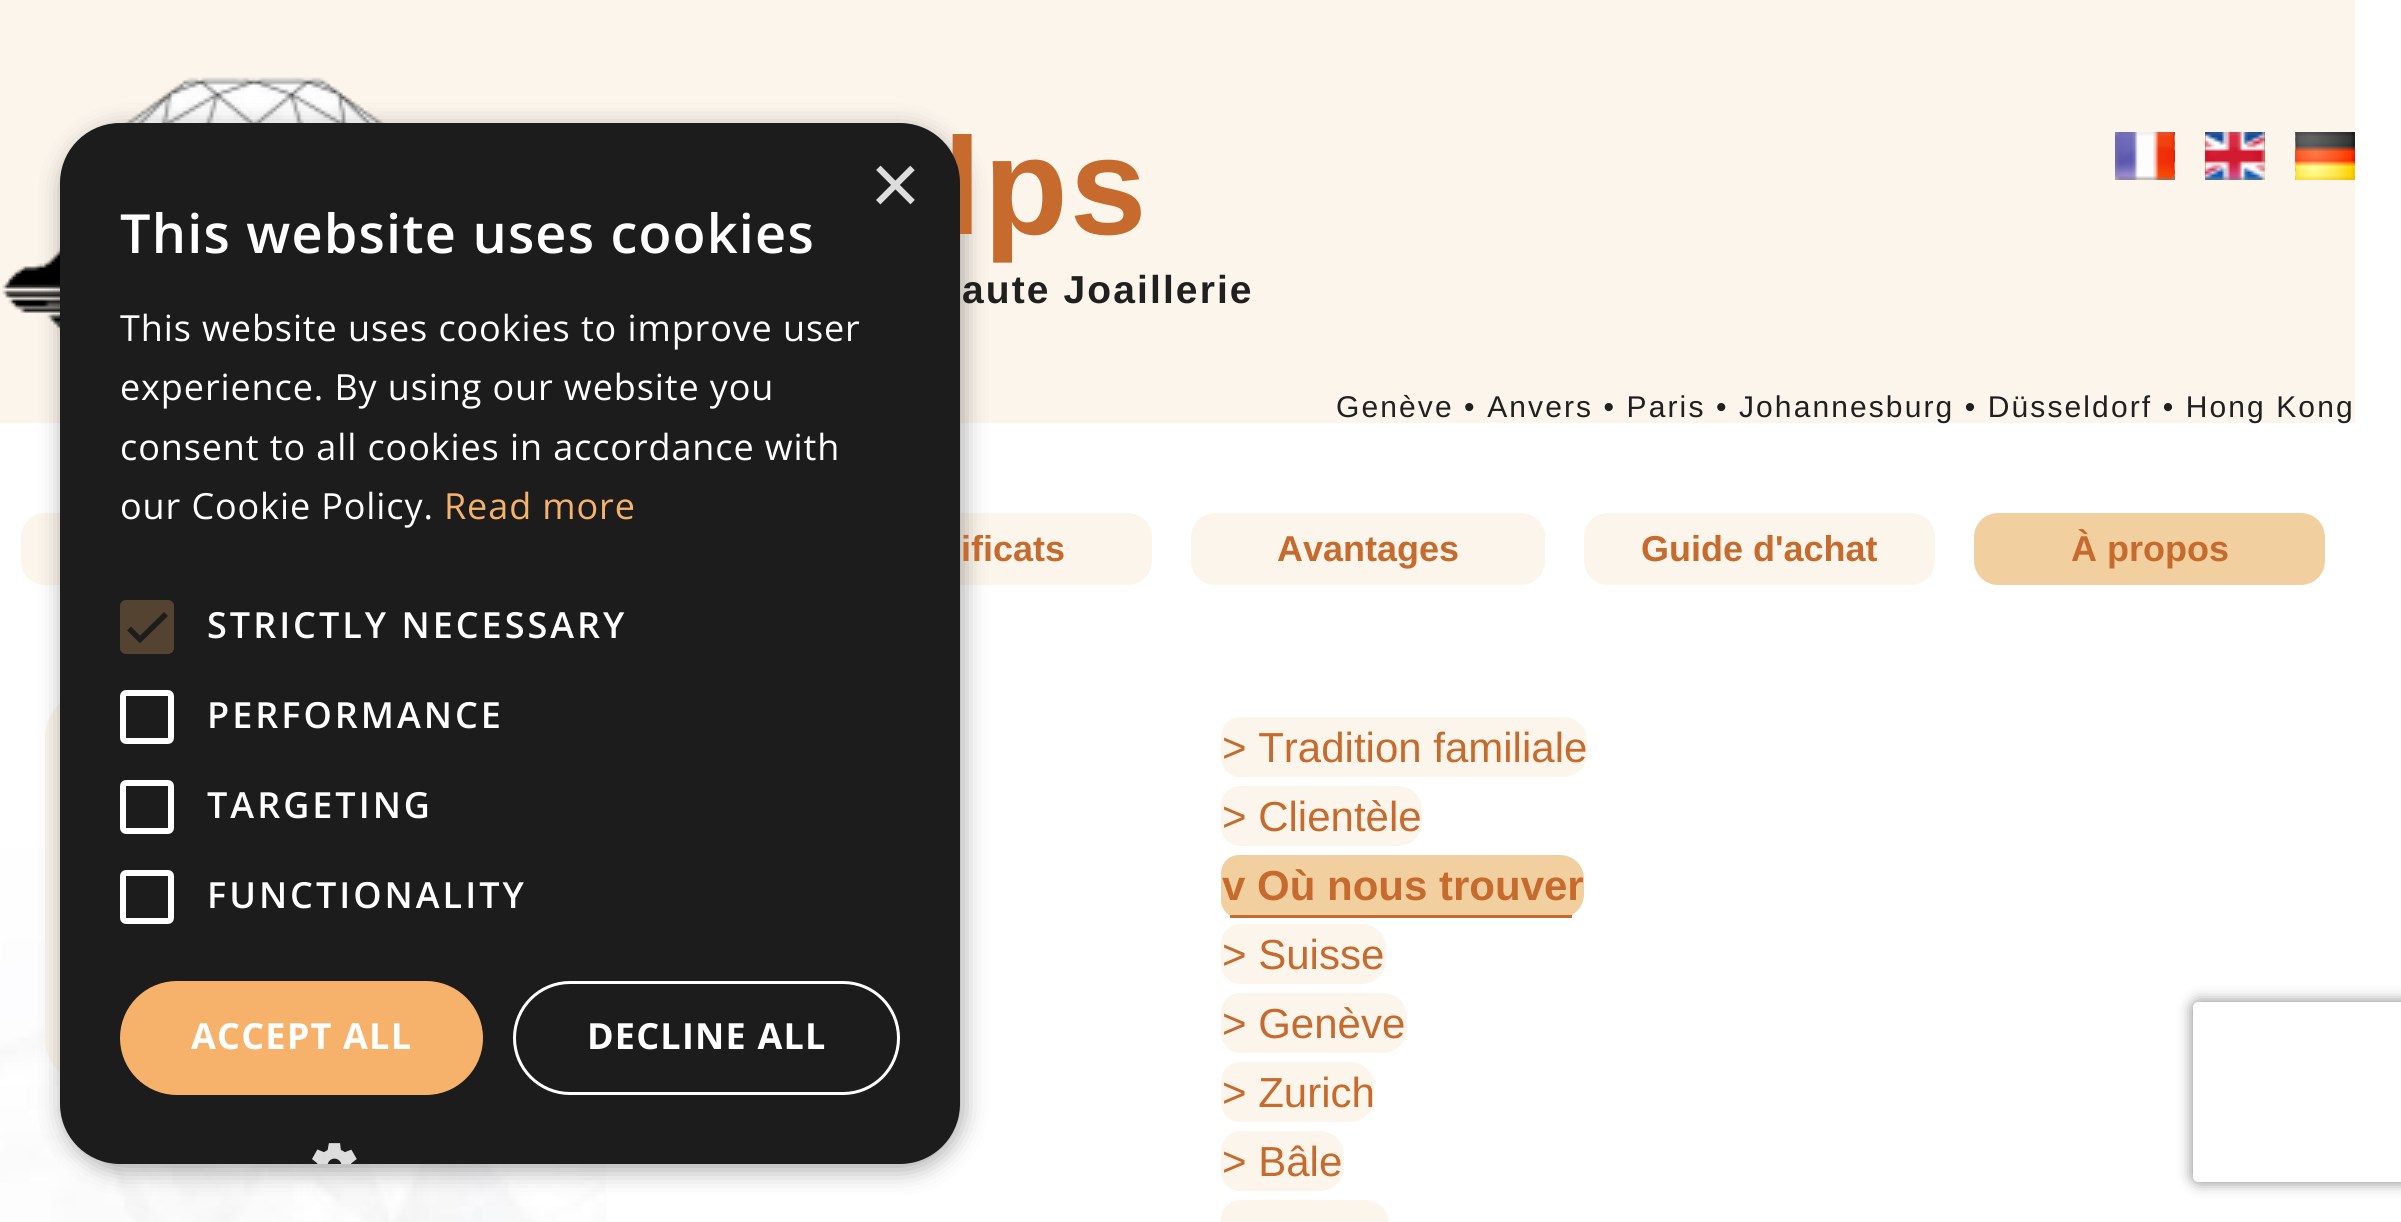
#include <cairo.h>
#include <math.h>
#include <stddef.h>

typedef struct { const char *family; double size; int italic, bold; unsigned color; } style_t;
static cairo_t *ctx;

static void ink(unsigned color) {
    cairo_set_source_rgb(ctx, (color >> 16) / 255.0, (color >> 8 & 255) / 255.0, (color & 255) / 255.0);
}

static void write(double x, double y, const char *s, const style_t *st) {
    cairo_select_font_face(ctx, st->family, st->italic ? CAIRO_FONT_SLANT_ITALIC : CAIRO_FONT_SLANT_NORMAL,
        st->bold ? CAIRO_FONT_WEIGHT_BOLD : CAIRO_FONT_WEIGHT_NORMAL);
    cairo_set_font_size(ctx, st->size);
    ink(st->color);
    cairo_move_to(ctx, x, y);
    cairo_show_text(ctx, s);
}

static void write_spaced(double x, double y, const char *s, double letter, double word) {
    cairo_move_to(ctx, x, y);
    while (*s) {
        char ch[5] = {0};
        int n = 0;
        do ch[n++] = *s++; while ((*s & 0xC0) == 0x80);
        cairo_show_text(ctx, ch);
        cairo_rel_move_to(ctx, letter + word * (*ch == ' '), 0);
    }
}

static void block(double x, double y, double w, double h, unsigned color) {
    ink(color);
    cairo_rectangle(ctx, x, y, w, h);
    cairo_fill(ctx);
}

static void round_path(double x, double y, double w, double h, double r) {
    cairo_new_sub_path(ctx);
    cairo_arc(ctx, x + w - r, y + h - r, r, 0, M_PI / 2);
    cairo_arc(ctx, x + r, y + h - r, r, M_PI / 2, M_PI);
    cairo_arc(ctx, x + r, y + r, r, M_PI, 1.5 * M_PI);
    cairo_arc(ctx, x + w - r, y + r, r, 1.5 * M_PI, 2 * M_PI);
    cairo_close_path(ctx);
}

static void blur_box(double x, double y, double w, double h, double r, double blur, double alpha) {
    cairo_push_group_with_content(ctx, CAIRO_CONTENT_ALPHA);
    cairo_set_operator(ctx, CAIRO_OPERATOR_SOURCE);
    for (int i = 15; i >= -15 && fmin(w, h) + blur * i / 3 > 0; i -= 2) {
        double e = blur * i / 6;
        cairo_set_source_rgba(ctx, 0, 0, 0, alpha * erfc((i - 1) / 8.5) / 2);
        round_path(x - e, y - e, w + 2 * e, h + 2 * e, fmax(0, fmin(r + e + blur * .6, fmin(w, h) / 2 + e)));
        cairo_fill(ctx);
    }
    cairo_pattern_t *soft = cairo_pop_group(ctx);
    cairo_mask(ctx, soft);
    cairo_pattern_destroy(soft);
}

static void paste(const char *path, double x, double y, double w, double h) {
    cairo_surface_t *image = cairo_image_surface_create_from_png(path);
    cairo_save(ctx);
    cairo_set_source_surface(ctx, image, x, y);
    cairo_rectangle(ctx, x, y, w, h);
    cairo_fill(ctx);
    cairo_restore(ctx);
    cairo_surface_destroy(image);
}

static const style_t s1 = {"Liberation Sans", 87, 0, 0, 0xdddddd};
static const style_t s2 = {"Liberation Sans", 36, 0, 1, 0xc66b2d};
static const style_t s3 = {"Liberation Sans", 42, 0, 0, 0xc66b2d};
static const style_t s4 = {"Liberation Sans", 42, 0, 1, 0xc66b2d};

int main(void) {
    cairo_surface_t *surface = cairo_image_surface_create(CAIRO_FORMAT_RGB24, 2401, 1222);
    ctx = cairo_create(surface);
    cairo_font_options_t *options = cairo_font_options_create();
    cairo_font_options_set_hint_metrics(options, CAIRO_HINT_METRICS_OFF);
    cairo_font_options_set_hint_style(options, CAIRO_HINT_STYLE_NONE);
    cairo_set_font_options(ctx, options);
    cairo_set_miter_limit(ctx, 4);
    ink(0xffffff);
    cairo_paint(ctx);
    paste("pic1.png", 0, 847, 606, 375);
    block(0, 0, 2355, 423, 0xfcf5ec);
    paste("pic3.png", 2, 77, 383, 254);
    round_path(21, 513, 351, 72, 24);
    cairo_fill(ctx);
    round_path(801, 513, 351, 72, 24);
    cairo_fill(ctx);
    round_path(45, 690, 435, 396, 48);
    cairo_fill(ctx);
    ink(0x000000);
    blur_box(63, 129, 900, 1041, 60, 12, 0.35);
    cairo_select_font_face(ctx, "Liberation Sans", CAIRO_FONT_SLANT_NORMAL, CAIRO_FONT_WEIGHT_BOLD);
    cairo_set_font_size(ctx, 138);
    ink(0xc66b2d);
    write_spaced(943, 234, "lps", 2.1, 0);
    ink(0x1c1c1c);
    round_path(60, 123, 900, 1041, 60);
    cairo_fill(ctx);
    write(870, 214, "×", &s1);
    cairo_select_font_face(ctx, "Open Sans SemiBold", CAIRO_FONT_SLANT_NORMAL, CAIRO_FONT_WEIGHT_NORMAL);
    cairo_set_font_size(ctx, 54);
    ink(0xffffff);
    write_spaced(120, 253, "This website uses cookies", 1.2, 0);
    cairo_select_font_face(ctx, "Open Sans", CAIRO_FONT_SLANT_NORMAL, CAIRO_FONT_WEIGHT_NORMAL);
    cairo_set_font_size(ctx, 36);
    write_spaced(120, 341, "This website uses cookies to improve user", 0.9, 0);
    write_spaced(120, 400, "experience. By using our website you", 0.9, 0);
    write_spaced(120, 460, "consent to all cookies in accordance with", 0.9, 0);
    write_spaced(120, 519, "our Cookie Policy.", 0.9, 0);
    ink(0xf6b26b);
    write_spaced(444, 519, "Read more", 0.9, 0);
    ink(0x554331);
    round_path(120, 600, 54, 54, 6);
    cairo_fill(ctx);
    cairo_new_path(ctx);
    cairo_move_to(ctx, 129, 628.5);
    cairo_line_to(ctx, 140, 639.5);
    cairo_line_to(ctx, 166, 614);
    ink(0x1c1c1c);
    cairo_set_line_width(ctx, 5.5);
    cairo_stroke(ctx);
    cairo_select_font_face(ctx, "Open Sans SemiBold", CAIRO_FONT_SLANT_NORMAL, CAIRO_FONT_WEIGHT_NORMAL);
    ink(0xffffff);
    write_spaced(207, 638, "STRICTLY NECESSARY", 3, 0);
    round_path(123, 693, 48, 48, 3);
    cairo_set_line_width(ctx, 6);
    cairo_stroke(ctx);
    write_spaced(207, 728, "PERFORMANCE", 3, 0);
    round_path(123, 783, 48, 48, 3);
    cairo_stroke(ctx);
    write_spaced(207, 818, "TARGETING", 3, 0);
    round_path(123, 873, 48, 48, 3);
    cairo_stroke(ctx);
    write_spaced(207, 908, "FUNCTIONALITY", 3, 0);
    ink(0xf6b26b);
    round_path(120, 981, 363, 114, 57);
    cairo_fill(ctx);
    cairo_select_font_face(ctx, "Open Sans", CAIRO_FONT_SLANT_NORMAL, CAIRO_FONT_WEIGHT_BOLD);
    ink(0xffffff);
    write_spaced(191, 1049, "ACCEPT ALL", 1.2, 0);
    round_path(514.5, 982.5, 384, 111, 55.5);
    cairo_set_line_width(ctx, 3);
    cairo_stroke(ctx);
    write_spaced(587, 1049, "DECLINE ALL", 1.2, 0);
    paste("pic2.png", 312, 1143, 45, 21);
    cairo_select_font_face(ctx, "Liberation Sans", CAIRO_FONT_SLANT_NORMAL, CAIRO_FONT_WEIGHT_BOLD);
    cairo_set_font_size(ctx, 39);
    ink(0x202020);
    write_spaced(962, 303, "aute Joaillerie", 2.1, 0);
    paste("pic4.png", 2115, 132, 60, 48);
    paste("pic5.png", 2205, 132, 60, 48);
    paste("pic6.png", 2295, 132, 60, 48);
    cairo_select_font_face(ctx, "Liberation Sans", CAIRO_FONT_SLANT_NORMAL, CAIRO_FONT_WEIGHT_NORMAL);
    cairo_set_font_size(ctx, 30);
    write_spaced(1336, 417, "Genève • Anvers • Paris • Johannesburg • Düsseldorf • Hong Kong", 2.1, 0);
    write(961, 561, "ificats", &s2);
    ink(0xfcf5ec);
    round_path(1191, 513, 354, 72, 24);
    cairo_fill(ctx);
    write(1277, 561, "Avantages", &s2);
    ink(0xfcf5ec);
    round_path(1584, 513, 351, 72, 24);
    cairo_fill(ctx);
    write(1641, 561, "Guide d'achat", &s2);
    ink(0xf2cf9f);
    round_path(1974, 513, 351, 72, 24);
    cairo_fill(ctx);
    write(2071, 561, "À propos", &s2);
    ink(0xfcf5ec);
    cairo_new_path(ctx);
    cairo_move_to(ctx, 1240.5, 717);
    cairo_line_to(ctx, 1260, 717);
    cairo_line_to(ctx, 1260, 777);
    cairo_line_to(ctx, 1240.5, 777);
    cairo_curve_to(ctx, 1229.5, 777, 1221, 768.5, 1221, 757.5);
    cairo_line_to(ctx, 1221, 736.5);
    cairo_curve_to(ctx, 1221, 725.5, 1229.5, 717, 1240.5, 717);
    cairo_close_path(ctx);
    cairo_fill(ctx);
    cairo_new_path(ctx);
    cairo_move_to(ctx, 1260, 717);
    cairo_line_to(ctx, 1563, 717);
    cairo_curve_to(ctx, 1576.5, 717, 1587, 727.5, 1587, 741);
    cairo_line_to(ctx, 1587, 753);
    cairo_curve_to(ctx, 1587, 766.5, 1576.5, 777, 1563, 777);
    cairo_line_to(ctx, 1260, 777);
    cairo_close_path(ctx);
    cairo_fill(ctx);
    write(1222, 762, "> Tradition familiale", &s3);
    ink(0xfcf5ec);
    cairo_new_path(ctx);
    cairo_move_to(ctx, 1240.5, 786);
    cairo_line_to(ctx, 1260, 786);
    cairo_line_to(ctx, 1260, 846);
    cairo_line_to(ctx, 1240.5, 846);
    cairo_curve_to(ctx, 1229.5, 846, 1221, 837.5, 1221, 826.5);
    cairo_line_to(ctx, 1221, 805.5);
    cairo_curve_to(ctx, 1221, 794.5, 1229.5, 786, 1240.5, 786);
    cairo_close_path(ctx);
    cairo_fill(ctx);
    cairo_new_path(ctx);
    cairo_move_to(ctx, 1260, 786);
    cairo_line_to(ctx, 1398, 786);
    cairo_curve_to(ctx, 1411.5, 786, 1422, 796.5, 1422, 810);
    cairo_line_to(ctx, 1422, 822);
    cairo_curve_to(ctx, 1422, 835.5, 1411.5, 846, 1398, 846);
    cairo_line_to(ctx, 1260, 846);
    cairo_close_path(ctx);
    cairo_fill(ctx);
    write(1222, 831, "> Clientèle", &s3);
    ink(0xf2cf9f);
    cairo_new_path(ctx);
    cairo_move_to(ctx, 1239, 855);
    cairo_line_to(ctx, 1257, 855);
    cairo_line_to(ctx, 1257, 918);
    cairo_line_to(ctx, 1239, 918);
    cairo_curve_to(ctx, 1229, 918, 1221, 910, 1221, 900);
    cairo_line_to(ctx, 1221, 873);
    cairo_curve_to(ctx, 1221, 863, 1229, 855, 1239, 855);
    cairo_close_path(ctx);
    cairo_fill(ctx);
    cairo_new_path(ctx);
    cairo_move_to(ctx, 1257, 855);
    cairo_line_to(ctx, 1560, 855);
    cairo_curve_to(ctx, 1573.5, 855, 1584, 865.5, 1584, 879);
    cairo_line_to(ctx, 1584, 894);
    cairo_curve_to(ctx, 1584, 907.5, 1573.5, 918, 1560, 918);
    cairo_line_to(ctx, 1257, 918);
    cairo_close_path(ctx);
    cairo_fill(ctx);
    write(1222, 900, "v Où nous trouver", &s4);
    block(1230, 915, 27, 3, 0xc66b2d);
    block(1257, 915, 315, 3, 0xc66b2d);
    ink(0xfcf5ec);
    cairo_new_path(ctx);
    cairo_move_to(ctx, 1240.5, 924);
    cairo_line_to(ctx, 1260, 924);
    cairo_line_to(ctx, 1260, 984);
    cairo_line_to(ctx, 1240.5, 984);
    cairo_curve_to(ctx, 1229.5, 984, 1221, 975.5, 1221, 964.5);
    cairo_line_to(ctx, 1221, 943.5);
    cairo_curve_to(ctx, 1221, 932.5, 1229.5, 924, 1240.5, 924);
    cairo_close_path(ctx);
    cairo_fill(ctx);
    cairo_new_path(ctx);
    cairo_move_to(ctx, 1260, 924);
    cairo_line_to(ctx, 1362, 924);
    cairo_curve_to(ctx, 1375.5, 924, 1386, 934.5, 1386, 948);
    cairo_line_to(ctx, 1386, 960);
    cairo_curve_to(ctx, 1386, 973.5, 1375.5, 984, 1362, 984);
    cairo_line_to(ctx, 1260, 984);
    cairo_close_path(ctx);
    cairo_fill(ctx);
    write(1222, 969, "> Suisse", &s3);
    ink(0xfcf5ec);
    cairo_new_path(ctx);
    cairo_move_to(ctx, 1240.5, 993);
    cairo_line_to(ctx, 1260, 993);
    cairo_line_to(ctx, 1260, 1053);
    cairo_line_to(ctx, 1240.5, 1053);
    cairo_curve_to(ctx, 1229.5, 1053, 1221, 1044.5, 1221, 1033.5);
    cairo_line_to(ctx, 1221, 1012.5);
    cairo_curve_to(ctx, 1221, 1001.5, 1229.5, 993, 1240.5, 993);
    cairo_close_path(ctx);
    cairo_fill(ctx);
    cairo_new_path(ctx);
    cairo_move_to(ctx, 1260, 993);
    cairo_line_to(ctx, 1383, 993);
    cairo_curve_to(ctx, 1396.5, 993, 1407, 1003.5, 1407, 1017);
    cairo_line_to(ctx, 1407, 1029);
    cairo_curve_to(ctx, 1407, 1042.5, 1396.5, 1053, 1383, 1053);
    cairo_line_to(ctx, 1260, 1053);
    cairo_close_path(ctx);
    cairo_fill(ctx);
    write(1222, 1038, "> Genève", &s3);
    ink(0xfcf5ec);
    cairo_new_path(ctx);
    cairo_move_to(ctx, 1240.5, 1062);
    cairo_line_to(ctx, 1260, 1062);
    cairo_line_to(ctx, 1260, 1122);
    cairo_line_to(ctx, 1240.5, 1122);
    cairo_curve_to(ctx, 1229.5, 1122, 1221, 1113.5, 1221, 1102.5);
    cairo_line_to(ctx, 1221, 1081.5);
    cairo_curve_to(ctx, 1221, 1070.5, 1229.5, 1062, 1240.5, 1062);
    cairo_close_path(ctx);
    cairo_fill(ctx);
    cairo_new_path(ctx);
    cairo_move_to(ctx, 1260, 1062);
    cairo_line_to(ctx, 1350, 1062);
    cairo_curve_to(ctx, 1363.5, 1062, 1374, 1072.5, 1374, 1086);
    cairo_line_to(ctx, 1374, 1098);
    cairo_curve_to(ctx, 1374, 1111.5, 1363.5, 1122, 1350, 1122);
    cairo_line_to(ctx, 1260, 1122);
    cairo_close_path(ctx);
    cairo_fill(ctx);
    write(1222, 1107, "> Zurich", &s3);
    ink(0xfcf5ec);
    cairo_new_path(ctx);
    cairo_move_to(ctx, 1240.5, 1131);
    cairo_line_to(ctx, 1260, 1131);
    cairo_line_to(ctx, 1260, 1191);
    cairo_line_to(ctx, 1240.5, 1191);
    cairo_curve_to(ctx, 1229.5, 1191, 1221, 1182.5, 1221, 1171.5);
    cairo_line_to(ctx, 1221, 1150.5);
    cairo_curve_to(ctx, 1221, 1139.5, 1229.5, 1131, 1240.5, 1131);
    cairo_close_path(ctx);
    cairo_fill(ctx);
    cairo_new_path(ctx);
    cairo_move_to(ctx, 1260, 1131);
    cairo_line_to(ctx, 1320, 1131);
    cairo_curve_to(ctx, 1333.5, 1131, 1344, 1141.5, 1344, 1155);
    cairo_line_to(ctx, 1344, 1167);
    cairo_curve_to(ctx, 1344, 1180.5, 1333.5, 1191, 1320, 1191);
    cairo_line_to(ctx, 1260, 1191);
    cairo_close_path(ctx);
    cairo_fill(ctx);
    write(1222, 1176, "> Bâle", &s3);
    ink(0xfcf5ec);
    cairo_new_path(ctx);
    cairo_move_to(ctx, 1240.5, 1200);
    cairo_line_to(ctx, 1260, 1200);
    cairo_line_to(ctx, 1260, 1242);
    cairo_line_to(ctx, 1240.5, 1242);
    cairo_curve_to(ctx, 1229.5, 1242, 1221, 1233.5, 1221, 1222.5);
    cairo_line_to(ctx, 1221, 1219.5);
    cairo_curve_to(ctx, 1221, 1208.5, 1229.5, 1200, 1240.5, 1200);
    cairo_close_path(ctx);
    cairo_fill(ctx);
    cairo_new_path(ctx);
    cairo_move_to(ctx, 1260, 1200);
    cairo_line_to(ctx, 1365, 1200);
    cairo_curve_to(ctx, 1378.5, 1200, 1389, 1210.5, 1389, 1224);
    cairo_line_to(ctx, 1389, 1222);
    cairo_curve_to(ctx, 1389, 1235.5, 1378.5, 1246, 1365, 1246);
    cairo_line_to(ctx, 1260, 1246);
    cairo_close_path(ctx);
    cairo_fill(ctx);
    cairo_save(ctx);
    cairo_set_fill_rule(ctx, CAIRO_FILL_RULE_EVEN_ODD);
    cairo_new_path(ctx);
    cairo_move_to(ctx, 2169, 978);
    cairo_line_to(ctx, 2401, 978);
    cairo_line_to(ctx, 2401, 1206);
    cairo_line_to(ctx, 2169, 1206);
    cairo_close_path(ctx);
    cairo_move_to(ctx, 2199, 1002);
    cairo_line_to(ctx, 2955, 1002);
    cairo_curve_to(ctx, 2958.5, 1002, 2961, 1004.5, 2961, 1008);
    cairo_line_to(ctx, 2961, 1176);
    cairo_curve_to(ctx, 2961, 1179.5, 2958.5, 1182, 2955, 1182);
    cairo_line_to(ctx, 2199, 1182);
    cairo_curve_to(ctx, 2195.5, 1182, 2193, 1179.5, 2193, 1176);
    cairo_line_to(ctx, 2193, 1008);
    cairo_curve_to(ctx, 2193, 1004.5, 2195.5, 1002, 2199, 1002);
    cairo_close_path(ctx);
    cairo_clip(ctx);
    ink(0x808080);
    blur_box(2193, 1002, 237, 180, 6, 7.5, 1);
    cairo_restore(ctx);
    cairo_surface_write_to_png(surface, "screenshot.png");
    cairo_font_options_destroy(options);
    cairo_destroy(ctx);
    cairo_surface_destroy(surface);
    return 0;
}
